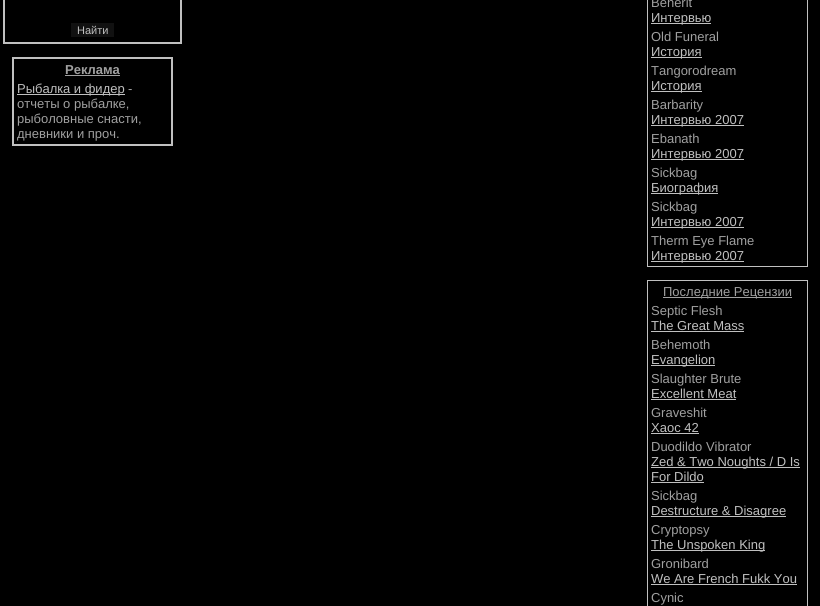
#include <cairo.h>
#include <math.h>
#include <stddef.h>

typedef struct { const char *family; double size; int italic, bold; unsigned color; } style_t;
static cairo_t *ctx;

static void ink(unsigned color) {
    cairo_set_source_rgb(ctx, (color >> 16) / 255.0, (color >> 8 & 255) / 255.0, (color & 255) / 255.0);
}

static void write(double x, double y, const char *s, const style_t *st) {
    cairo_select_font_face(ctx, st->family, st->italic ? CAIRO_FONT_SLANT_ITALIC : CAIRO_FONT_SLANT_NORMAL,
        st->bold ? CAIRO_FONT_WEIGHT_BOLD : CAIRO_FONT_WEIGHT_NORMAL);
    cairo_set_font_size(ctx, st->size);
    ink(st->color);
    cairo_move_to(ctx, x, y);
    cairo_show_text(ctx, s);
}

static void block(double x, double y, double w, double h, unsigned color) {
    ink(color);
    cairo_rectangle(ctx, x, y, w, h);
    cairo_fill(ctx);
}

static const style_t s1 = {"Liberation Sans", 11, 0, 0, 0xc0c0c0};
static const style_t s2 = {"Liberation Sans", 13, 0, 1, 0xa0a0a0};
static const style_t s3 = {"Liberation Sans", 13, 0, 0, 0xc0c0c0};
static const style_t s4 = {"Liberation Sans", 13, 0, 0, 0xa0a0a0};

int main(void) {
    cairo_surface_t *surface = cairo_image_surface_create(CAIRO_FORMAT_RGB24, 820, 606);
    ctx = cairo_create(surface);
    cairo_font_options_t *options = cairo_font_options_create();
    cairo_font_options_set_hint_metrics(options, CAIRO_HINT_METRICS_OFF);
    cairo_font_options_set_hint_style(options, CAIRO_HINT_STYLE_NONE);
    cairo_set_font_options(ctx, options);
    cairo_set_miter_limit(ctx, 4);
    ink(0x000000);
    cairo_paint(ctx);
    cairo_rectangle(ctx, 4, -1, 177, 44);
    ink(0xc0c0c0);
    cairo_stroke(ctx);
    block(71, 23, 43, 14, 0x111111);
    write(77, 34, "Найти", &s1);
    cairo_rectangle(ctx, 13, 58, 159, 87);
    cairo_stroke(ctx);
    write(65, 74, "Реклама", &s2);
    block(65, 75, 55, 1, 0xa0a0a0);
    block(17, 94, 108, 1, 0xc0c0c0);
    write(17, 93, "Рыбалка и фидер", &s3);
    write(128, 93, "-", &s4);
    write(17, 108, "отчеты о рыбалке,", &s4);
    write(17, 123, "рыболовные снасти,", &s4);
    write(17, 138, "дневники и проч.", &s4);
    cairo_rectangle(ctx, 647.5, -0.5, 160, 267);
    ink(0xc0c0c0);
    cairo_set_line_width(ctx, 1);
    cairo_stroke(ctx);
    write(651, 7, "Beherit", &s4);
    block(651, 23, 60, 1, 0xc0c0c0);
    write(651, 22, "Интервью", &s3);
    write(651, 41, "Old Funeral", &s4);
    block(651, 57, 51, 1, 0xc0c0c0);
    write(651, 56, "История", &s3);
    write(651, 75, "Tangorodream", &s4);
    block(651, 91, 51, 1, 0xc0c0c0);
    write(651, 90, "История", &s3);
    write(651, 109, "Barbarity", &s4);
    block(651, 125, 93, 1, 0xc0c0c0);
    write(651, 124, "Интервью 2007", &s3);
    write(651, 143, "Ebanath", &s4);
    block(651, 159, 93, 1, 0xc0c0c0);
    write(651, 158, "Интервью 2007", &s3);
    write(651, 177, "Sickbag", &s4);
    block(651, 193, 67, 1, 0xc0c0c0);
    write(651, 192, "Биография", &s3);
    write(651, 211, "Sickbag", &s4);
    block(651, 227, 93, 1, 0xc0c0c0);
    write(651, 226, "Интервью 2007", &s3);
    write(651, 245, "Therm Eye Flame", &s4);
    block(651, 261, 93, 1, 0xc0c0c0);
    write(651, 260, "Интервью 2007", &s3);
    cairo_rectangle(ctx, 647.5, 280.5, 160, 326);
    cairo_stroke(ctx);
    block(663, 297, 129, 1, 0xa0a0a0);
    write(663, 296, "Последние Рецензии", &s4);
    write(651, 315, "Septic Flesh", &s4);
    write(651, 330, "The Great Mass", &s3);
    block(651, 331, 93, 1, 0xc0c0c0);
    write(651, 349, "Behemoth", &s4);
    block(651, 365, 64, 1, 0xc0c0c0);
    write(651, 364, "Evangelion", &s3);
    write(651, 383, "Slaughter Brute", &s4);
    write(651, 398, "Excellent Meat", &s3);
    block(651, 399, 85, 1, 0xc0c0c0);
    write(651, 417, "Graveshit", &s4);
    write(651, 432, "Хаос 42", &s3);
    block(651, 433, 48, 1, 0xc0c0c0);
    write(651, 451, "Duodildo Vibrator", &s4);
    block(651, 467, 149, 1, 0xc0c0c0);
    write(651, 466, "Zed & Two Noughts / D Is", &s3);
    write(651, 481, "For Dildo", &s3);
    block(651, 482, 53, 1, 0xc0c0c0);
    write(651, 500, "Sickbag", &s4);
    block(651, 516, 135, 1, 0xc0c0c0);
    write(651, 515, "Destructure & Disagree", &s3);
    write(651, 534, "Cryptopsy", &s4);
    block(651, 550, 114, 1, 0xc0c0c0);
    write(651, 549, "The Unspoken King", &s3);
    write(651, 568, "Gronibard", &s4);
    write(651, 583, "We Are French Fukk You", &s3);
    block(651, 584, 146, 1, 0xc0c0c0);
    write(651, 602, "Cynic", &s4);
    cairo_surface_write_to_png(surface, "screenshot.png");
    cairo_font_options_destroy(options);
    cairo_destroy(ctx);
    cairo_surface_destroy(surface);
    return 0;
}
